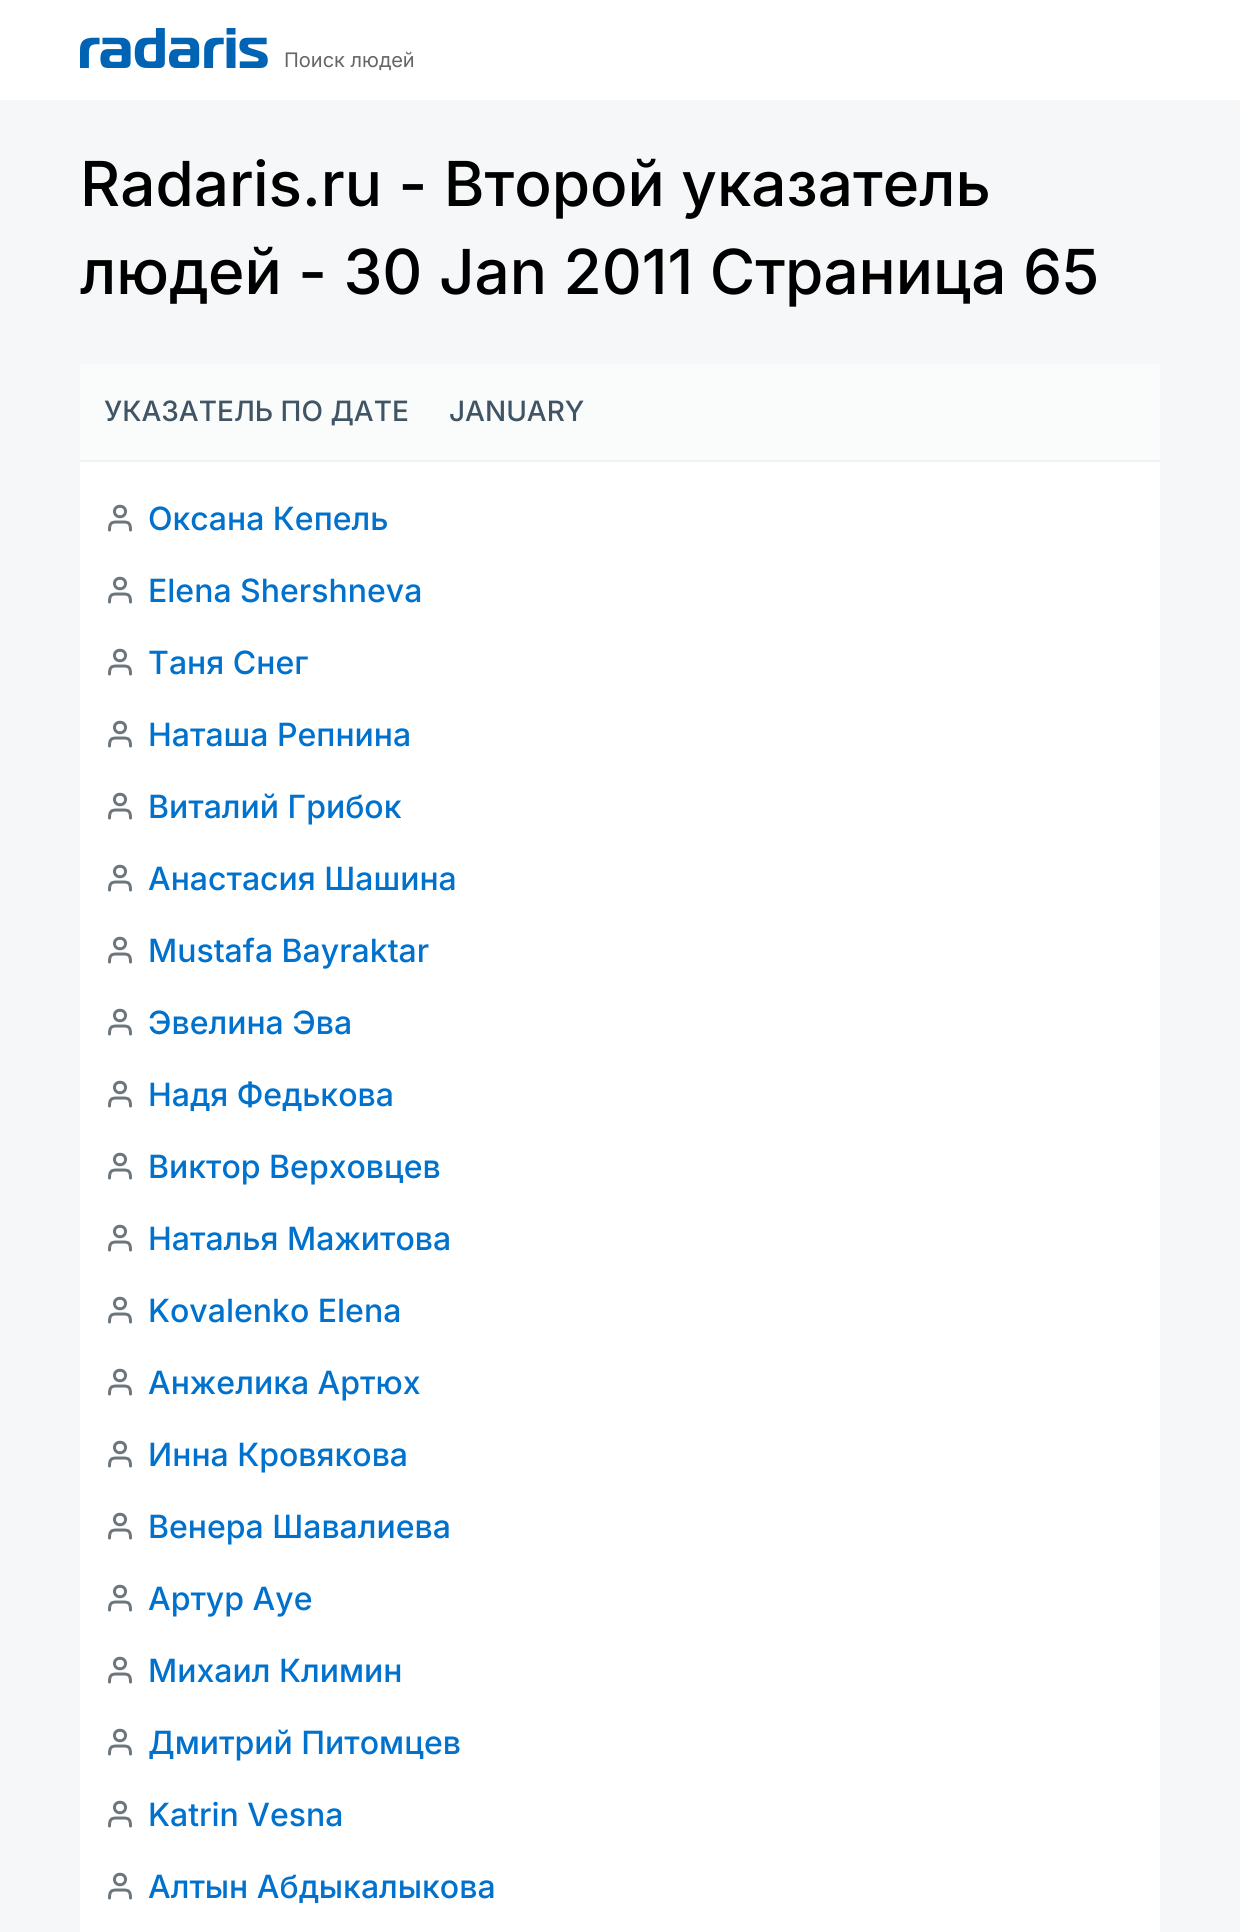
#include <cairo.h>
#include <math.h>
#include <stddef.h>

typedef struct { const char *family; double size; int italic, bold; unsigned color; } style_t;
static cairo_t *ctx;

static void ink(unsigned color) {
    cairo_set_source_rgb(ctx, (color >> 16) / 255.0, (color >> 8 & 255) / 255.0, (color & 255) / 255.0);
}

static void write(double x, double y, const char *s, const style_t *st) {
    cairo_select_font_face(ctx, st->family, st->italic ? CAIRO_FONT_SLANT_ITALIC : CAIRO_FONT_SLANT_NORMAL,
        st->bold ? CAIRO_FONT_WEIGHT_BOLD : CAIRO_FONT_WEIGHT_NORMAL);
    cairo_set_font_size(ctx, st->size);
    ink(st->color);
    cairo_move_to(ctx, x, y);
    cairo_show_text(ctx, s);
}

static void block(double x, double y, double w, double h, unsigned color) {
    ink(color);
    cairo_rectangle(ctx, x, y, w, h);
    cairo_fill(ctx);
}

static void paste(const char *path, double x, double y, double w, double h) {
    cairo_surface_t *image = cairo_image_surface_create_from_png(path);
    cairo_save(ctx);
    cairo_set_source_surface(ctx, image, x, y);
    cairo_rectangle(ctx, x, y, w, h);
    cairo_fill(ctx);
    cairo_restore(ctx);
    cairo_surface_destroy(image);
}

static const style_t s1 = {"Inter", 20, 0, 0, 0x666666};
static const style_t s2 = {"Inter Medium", 62, 0, 0, 0x000000};
static const style_t s3 = {"Inter Medium", 28, 0, 0, 0x3f5464};
static const style_t s4 = {"Inter Medium", 32, 0, 0, 0x0071cc};

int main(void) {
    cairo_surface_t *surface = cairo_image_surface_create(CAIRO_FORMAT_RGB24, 1240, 1932);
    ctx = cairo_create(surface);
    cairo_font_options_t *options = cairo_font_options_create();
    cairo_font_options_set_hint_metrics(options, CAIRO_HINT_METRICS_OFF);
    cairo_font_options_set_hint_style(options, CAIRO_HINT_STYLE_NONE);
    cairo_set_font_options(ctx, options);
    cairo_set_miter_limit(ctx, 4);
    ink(0xf5f7f8);
    cairo_paint(ctx);
    block(0, 0, 1240, 100, 0xffffff);
    paste("pic1.png", 80, 28, 188, 40);
    write(284, 67, "Поиск людей", &s1);
    write(80, 206, "Radaris.ru - Второй указатель", &s2);
    write(80, 294, "людей - 30 Jan 2011 Страница 65", &s2);
    block(80, 364, 1080, 96, 0xfafbfb);
    block(80, 460, 1080, 2, 0xeff2f5);
    write(104, 421, "УКАЗАТЕЛЬ ПО ДАТЕ", &s3);
    write(449, 421, "JANUARY", &s3);
    block(80, 462, 1080, 1470, 0xffffff);
    cairo_new_path(ctx);
    cairo_move_to(ctx, 130.5, 530);
    cairo_curve_to(ctx, 130.5, 521.5, 127.5, 522, 120, 522);
    cairo_curve_to(ctx, 112.5, 522, 109.5, 521.5, 109.5, 530);
    cairo_move_to(ctx, 125.5, 511.5);
    cairo_curve_to(ctx, 125.5, 518.5, 114.5, 518.5, 114.5, 511.5);
    cairo_curve_to(ctx, 114.5, 504.5, 125.5, 504.5, 125.5, 511.5);
    cairo_close_path(ctx);
    ink(0x6b757d);
    cairo_set_line_width(ctx, 3);
    cairo_set_line_cap(ctx, CAIRO_LINE_CAP_ROUND);
    cairo_set_line_join(ctx, CAIRO_LINE_JOIN_ROUND);
    cairo_stroke(ctx);
    write(148, 530, "Оксана Кепель", &s4);
    cairo_new_path(ctx);
    cairo_move_to(ctx, 130.5, 602);
    cairo_curve_to(ctx, 130.5, 593.5, 127.5, 594, 120, 594);
    cairo_curve_to(ctx, 112.5, 594, 109.5, 593.5, 109.5, 602);
    cairo_move_to(ctx, 125.5, 583.5);
    cairo_curve_to(ctx, 125.5, 590.5, 114.5, 590.5, 114.5, 583.5);
    cairo_curve_to(ctx, 114.5, 576.5, 125.5, 576.5, 125.5, 583.5);
    cairo_close_path(ctx);
    ink(0x6b757d);
    cairo_stroke(ctx);
    write(148, 602, "Elena Shershneva", &s4);
    cairo_new_path(ctx);
    cairo_move_to(ctx, 130.5, 674);
    cairo_curve_to(ctx, 130.5, 665.5, 127.5, 666, 120, 666);
    cairo_curve_to(ctx, 112.5, 666, 109.5, 665.5, 109.5, 674);
    cairo_move_to(ctx, 125.5, 655.5);
    cairo_curve_to(ctx, 125.5, 662.5, 114.5, 662.5, 114.5, 655.5);
    cairo_curve_to(ctx, 114.5, 648.5, 125.5, 648.5, 125.5, 655.5);
    cairo_close_path(ctx);
    ink(0x6b757d);
    cairo_stroke(ctx);
    write(148, 674, "Таня Снег", &s4);
    cairo_new_path(ctx);
    cairo_move_to(ctx, 130.5, 746);
    cairo_curve_to(ctx, 130.5, 737.5, 127.5, 738, 120, 738);
    cairo_curve_to(ctx, 112.5, 738, 109.5, 737.5, 109.5, 746);
    cairo_move_to(ctx, 125.5, 727.5);
    cairo_curve_to(ctx, 125.5, 734.5, 114.5, 734.5, 114.5, 727.5);
    cairo_curve_to(ctx, 114.5, 720.5, 125.5, 720.5, 125.5, 727.5);
    cairo_close_path(ctx);
    ink(0x6b757d);
    cairo_stroke(ctx);
    write(148, 746, "Наташа Репнина", &s4);
    cairo_new_path(ctx);
    cairo_move_to(ctx, 130.5, 818);
    cairo_curve_to(ctx, 130.5, 809.5, 127.5, 810, 120, 810);
    cairo_curve_to(ctx, 112.5, 810, 109.5, 809.5, 109.5, 818);
    cairo_move_to(ctx, 125.5, 799.5);
    cairo_curve_to(ctx, 125.5, 806.5, 114.5, 806.5, 114.5, 799.5);
    cairo_curve_to(ctx, 114.5, 792.5, 125.5, 792.5, 125.5, 799.5);
    cairo_close_path(ctx);
    ink(0x6b757d);
    cairo_stroke(ctx);
    write(148, 818, "Виталий Грибок", &s4);
    cairo_new_path(ctx);
    cairo_move_to(ctx, 130.5, 890);
    cairo_curve_to(ctx, 130.5, 881.5, 127.5, 882, 120, 882);
    cairo_curve_to(ctx, 112.5, 882, 109.5, 881.5, 109.5, 890);
    cairo_move_to(ctx, 125.5, 871.5);
    cairo_curve_to(ctx, 125.5, 878.5, 114.5, 878.5, 114.5, 871.5);
    cairo_curve_to(ctx, 114.5, 864.5, 125.5, 864.5, 125.5, 871.5);
    cairo_close_path(ctx);
    ink(0x6b757d);
    cairo_stroke(ctx);
    write(148, 890, "Анастасия Шашина", &s4);
    cairo_new_path(ctx);
    cairo_move_to(ctx, 130.5, 962);
    cairo_curve_to(ctx, 130.5, 953.5, 127.5, 954, 120, 954);
    cairo_curve_to(ctx, 112.5, 954, 109.5, 953.5, 109.5, 962);
    cairo_move_to(ctx, 125.5, 943.5);
    cairo_curve_to(ctx, 125.5, 950.5, 114.5, 950.5, 114.5, 943.5);
    cairo_curve_to(ctx, 114.5, 936.5, 125.5, 936.5, 125.5, 943.5);
    cairo_close_path(ctx);
    ink(0x6b757d);
    cairo_stroke(ctx);
    write(148, 962, "Mustafa Bayraktar", &s4);
    cairo_new_path(ctx);
    cairo_move_to(ctx, 130.5, 1034);
    cairo_curve_to(ctx, 130.5, 1025.5, 127.5, 1026, 120, 1026);
    cairo_curve_to(ctx, 112.5, 1026, 109.5, 1025.5, 109.5, 1034);
    cairo_move_to(ctx, 125.5, 1015.5);
    cairo_curve_to(ctx, 125.5, 1022.5, 114.5, 1022.5, 114.5, 1015.5);
    cairo_curve_to(ctx, 114.5, 1008.5, 125.5, 1008.5, 125.5, 1015.5);
    cairo_close_path(ctx);
    ink(0x6b757d);
    cairo_stroke(ctx);
    write(148, 1034, "Эвелина Эва", &s4);
    cairo_new_path(ctx);
    cairo_move_to(ctx, 130.5, 1106);
    cairo_curve_to(ctx, 130.5, 1097.5, 127.5, 1098, 120, 1098);
    cairo_curve_to(ctx, 112.5, 1098, 109.5, 1097.5, 109.5, 1106);
    cairo_move_to(ctx, 125.5, 1087.5);
    cairo_curve_to(ctx, 125.5, 1094.5, 114.5, 1094.5, 114.5, 1087.5);
    cairo_curve_to(ctx, 114.5, 1080.5, 125.5, 1080.5, 125.5, 1087.5);
    cairo_close_path(ctx);
    ink(0x6b757d);
    cairo_stroke(ctx);
    write(148, 1106, "Надя Федькова", &s4);
    cairo_new_path(ctx);
    cairo_move_to(ctx, 130.5, 1178);
    cairo_curve_to(ctx, 130.5, 1169.5, 127.5, 1170, 120, 1170);
    cairo_curve_to(ctx, 112.5, 1170, 109.5, 1169.5, 109.5, 1178);
    cairo_move_to(ctx, 125.5, 1159.5);
    cairo_curve_to(ctx, 125.5, 1166.5, 114.5, 1166.5, 114.5, 1159.5);
    cairo_curve_to(ctx, 114.5, 1152.5, 125.5, 1152.5, 125.5, 1159.5);
    cairo_close_path(ctx);
    ink(0x6b757d);
    cairo_stroke(ctx);
    write(148, 1178, "Виктор Верховцев", &s4);
    cairo_new_path(ctx);
    cairo_move_to(ctx, 130.5, 1250);
    cairo_curve_to(ctx, 130.5, 1241.5, 127.5, 1242, 120, 1242);
    cairo_curve_to(ctx, 112.5, 1242, 109.5, 1241.5, 109.5, 1250);
    cairo_move_to(ctx, 125.5, 1231.5);
    cairo_curve_to(ctx, 125.5, 1238.5, 114.5, 1238.5, 114.5, 1231.5);
    cairo_curve_to(ctx, 114.5, 1224.5, 125.5, 1224.5, 125.5, 1231.5);
    cairo_close_path(ctx);
    ink(0x6b757d);
    cairo_stroke(ctx);
    write(148, 1250, "Наталья Мажитова", &s4);
    cairo_new_path(ctx);
    cairo_move_to(ctx, 130.5, 1322);
    cairo_curve_to(ctx, 130.5, 1313.5, 127.5, 1314, 120, 1314);
    cairo_curve_to(ctx, 112.5, 1314, 109.5, 1313.5, 109.5, 1322);
    cairo_move_to(ctx, 125.5, 1303.5);
    cairo_curve_to(ctx, 125.5, 1310.5, 114.5, 1310.5, 114.5, 1303.5);
    cairo_curve_to(ctx, 114.5, 1296.5, 125.5, 1296.5, 125.5, 1303.5);
    cairo_close_path(ctx);
    ink(0x6b757d);
    cairo_stroke(ctx);
    write(148, 1322, "Kovalenko Elena", &s4);
    cairo_new_path(ctx);
    cairo_move_to(ctx, 130.5, 1394);
    cairo_curve_to(ctx, 130.5, 1385.5, 127.5, 1386, 120, 1386);
    cairo_curve_to(ctx, 112.5, 1386, 109.5, 1385.5, 109.5, 1394);
    cairo_move_to(ctx, 125.5, 1375.5);
    cairo_curve_to(ctx, 125.5, 1382.5, 114.5, 1382.5, 114.5, 1375.5);
    cairo_curve_to(ctx, 114.5, 1368.5, 125.5, 1368.5, 125.5, 1375.5);
    cairo_close_path(ctx);
    ink(0x6b757d);
    cairo_stroke(ctx);
    write(148, 1394, "Анжелика Артюх", &s4);
    cairo_new_path(ctx);
    cairo_move_to(ctx, 130.5, 1466);
    cairo_curve_to(ctx, 130.5, 1457.5, 127.5, 1458, 120, 1458);
    cairo_curve_to(ctx, 112.5, 1458, 109.5, 1457.5, 109.5, 1466);
    cairo_move_to(ctx, 125.5, 1447.5);
    cairo_curve_to(ctx, 125.5, 1454.5, 114.5, 1454.5, 114.5, 1447.5);
    cairo_curve_to(ctx, 114.5, 1440.5, 125.5, 1440.5, 125.5, 1447.5);
    cairo_close_path(ctx);
    ink(0x6b757d);
    cairo_stroke(ctx);
    write(148, 1466, "Инна Кровякова", &s4);
    cairo_new_path(ctx);
    cairo_move_to(ctx, 130.5, 1538);
    cairo_curve_to(ctx, 130.5, 1529.5, 127.5, 1530, 120, 1530);
    cairo_curve_to(ctx, 112.5, 1530, 109.5, 1529.5, 109.5, 1538);
    cairo_move_to(ctx, 125.5, 1519.5);
    cairo_curve_to(ctx, 125.5, 1526.5, 114.5, 1526.5, 114.5, 1519.5);
    cairo_curve_to(ctx, 114.5, 1512.5, 125.5, 1512.5, 125.5, 1519.5);
    cairo_close_path(ctx);
    ink(0x6b757d);
    cairo_stroke(ctx);
    write(148, 1538, "Венера Шавалиева", &s4);
    cairo_new_path(ctx);
    cairo_move_to(ctx, 130.5, 1610);
    cairo_curve_to(ctx, 130.5, 1601.5, 127.5, 1602, 120, 1602);
    cairo_curve_to(ctx, 112.5, 1602, 109.5, 1601.5, 109.5, 1610);
    cairo_move_to(ctx, 125.5, 1591.5);
    cairo_curve_to(ctx, 125.5, 1598.5, 114.5, 1598.5, 114.5, 1591.5);
    cairo_curve_to(ctx, 114.5, 1584.5, 125.5, 1584.5, 125.5, 1591.5);
    cairo_close_path(ctx);
    ink(0x6b757d);
    cairo_stroke(ctx);
    write(148, 1610, "Артур Aye", &s4);
    cairo_new_path(ctx);
    cairo_move_to(ctx, 130.5, 1682);
    cairo_curve_to(ctx, 130.5, 1673.5, 127.5, 1674, 120, 1674);
    cairo_curve_to(ctx, 112.5, 1674, 109.5, 1673.5, 109.5, 1682);
    cairo_move_to(ctx, 125.5, 1663.5);
    cairo_curve_to(ctx, 125.5, 1670.5, 114.5, 1670.5, 114.5, 1663.5);
    cairo_curve_to(ctx, 114.5, 1656.5, 125.5, 1656.5, 125.5, 1663.5);
    cairo_close_path(ctx);
    ink(0x6b757d);
    cairo_stroke(ctx);
    write(148, 1682, "Михаил Климин", &s4);
    cairo_new_path(ctx);
    cairo_move_to(ctx, 130.5, 1754);
    cairo_curve_to(ctx, 130.5, 1745.5, 127.5, 1746, 120, 1746);
    cairo_curve_to(ctx, 112.5, 1746, 109.5, 1745.5, 109.5, 1754);
    cairo_move_to(ctx, 125.5, 1735.5);
    cairo_curve_to(ctx, 125.5, 1742.5, 114.5, 1742.5, 114.5, 1735.5);
    cairo_curve_to(ctx, 114.5, 1728.5, 125.5, 1728.5, 125.5, 1735.5);
    cairo_close_path(ctx);
    ink(0x6b757d);
    cairo_stroke(ctx);
    write(148, 1754, "Дмитрий Питомцев", &s4);
    cairo_new_path(ctx);
    cairo_move_to(ctx, 130.5, 1826);
    cairo_curve_to(ctx, 130.5, 1817.5, 127.5, 1818, 120, 1818);
    cairo_curve_to(ctx, 112.5, 1818, 109.5, 1817.5, 109.5, 1826);
    cairo_move_to(ctx, 125.5, 1807.5);
    cairo_curve_to(ctx, 125.5, 1814.5, 114.5, 1814.5, 114.5, 1807.5);
    cairo_curve_to(ctx, 114.5, 1800.5, 125.5, 1800.5, 125.5, 1807.5);
    cairo_close_path(ctx);
    ink(0x6b757d);
    cairo_stroke(ctx);
    write(148, 1826, "Katrin Vesna", &s4);
    cairo_new_path(ctx);
    cairo_move_to(ctx, 130.5, 1898);
    cairo_curve_to(ctx, 130.5, 1889.5, 127.5, 1890, 120, 1890);
    cairo_curve_to(ctx, 112.5, 1890, 109.5, 1889.5, 109.5, 1898);
    cairo_move_to(ctx, 125.5, 1879.5);
    cairo_curve_to(ctx, 125.5, 1886.5, 114.5, 1886.5, 114.5, 1879.5);
    cairo_curve_to(ctx, 114.5, 1872.5, 125.5, 1872.5, 125.5, 1879.5);
    cairo_close_path(ctx);
    ink(0x6b757d);
    cairo_stroke(ctx);
    write(148, 1898, "Алтын Абдыкалыкова", &s4);
    cairo_surface_write_to_png(surface, "screenshot.png");
    cairo_font_options_destroy(options);
    cairo_destroy(ctx);
    cairo_surface_destroy(surface);
    return 0;
}
